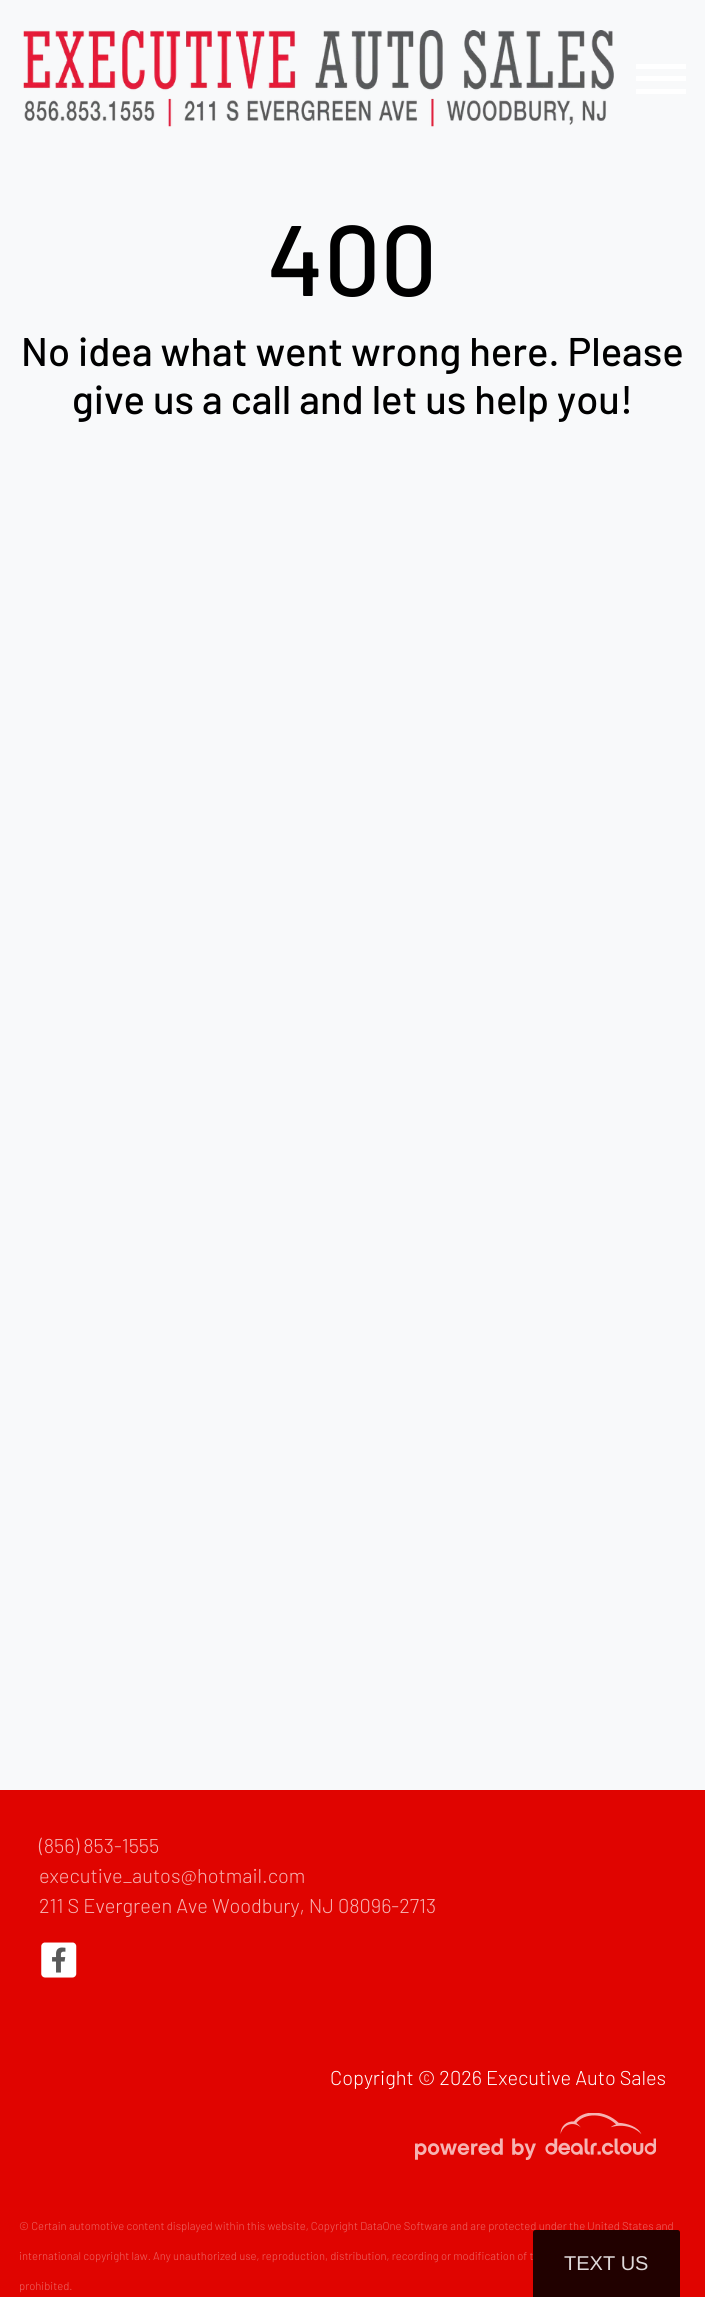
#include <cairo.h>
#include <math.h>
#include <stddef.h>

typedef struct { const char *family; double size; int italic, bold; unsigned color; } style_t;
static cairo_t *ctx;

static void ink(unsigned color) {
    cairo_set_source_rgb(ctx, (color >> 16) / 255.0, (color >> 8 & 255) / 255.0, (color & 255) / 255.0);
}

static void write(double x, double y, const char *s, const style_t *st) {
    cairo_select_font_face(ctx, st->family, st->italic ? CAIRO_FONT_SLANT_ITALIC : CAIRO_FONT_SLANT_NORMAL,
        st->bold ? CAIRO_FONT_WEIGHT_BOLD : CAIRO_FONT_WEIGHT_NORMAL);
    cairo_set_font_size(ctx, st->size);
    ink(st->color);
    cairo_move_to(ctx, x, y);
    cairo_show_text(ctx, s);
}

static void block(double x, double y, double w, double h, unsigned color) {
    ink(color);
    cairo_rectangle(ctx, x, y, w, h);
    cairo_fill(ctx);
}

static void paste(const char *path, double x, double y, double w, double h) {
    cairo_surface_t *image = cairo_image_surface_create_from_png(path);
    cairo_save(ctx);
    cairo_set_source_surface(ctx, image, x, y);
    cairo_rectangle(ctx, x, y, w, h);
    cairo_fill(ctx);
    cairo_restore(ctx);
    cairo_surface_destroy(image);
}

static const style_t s1 = {"Barlow Medium", 100, 0, 0, 0x000000};
static const style_t s2 = {"Barlow Medium", 40, 0, 0, 0x000000};
static const style_t s3 = {"Barlow Light", 20, 0, 0, 0xf6b4b3};
static const style_t s4 = {"Barlow Light", 20, 0, 0, 0xffffff};
static const style_t s5 = {"Barlow Light", 11.25, 0, 0, 0xec6866};
static const style_t s6 = {"Liberation Sans", 20, 0, 0, 0xded9d9};

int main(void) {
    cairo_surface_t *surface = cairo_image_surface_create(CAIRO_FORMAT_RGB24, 705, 2297);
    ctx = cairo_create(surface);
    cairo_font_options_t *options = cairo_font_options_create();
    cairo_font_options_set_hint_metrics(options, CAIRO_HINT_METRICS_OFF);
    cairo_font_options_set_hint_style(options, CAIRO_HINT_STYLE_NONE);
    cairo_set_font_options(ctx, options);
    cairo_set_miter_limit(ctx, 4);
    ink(0xf8f9fa);
    cairo_paint(ctx);
    paste("pic1.png", 23, 30, 591, 97);
    block(636, 76, 50, 5, 0xffffff);
    block(636, 64, 50, 5, 0xffffff);
    block(636, 89, 50, 5, 0xffffff);
    write(267, 296, "400", &s1);
    write(21, 366, "No idea what went wrong here. Please", &s2);
    write(72, 414, "give us a call and let us help you!", &s2);
    block(0, 1790, 705, 507, 0xe00400);
    write(39, 1853, "(856) 853-1555", &s3);
    write(39, 1883, "executive_autos@hotmail.com", &s3);
    write(39, 1913, "211 S Evergreen Ave Woodbury, NJ 08096-2713", &s3);
    paste("pic2.png", 41, 1942, 36, 36);
    paste("pic3.png", 52, 1947, 14, 26);
    write(330, 2085, "Copyright © 2026 Executive Auto Sales", &s4);
    paste("pic4.png", 415, 2113, 241, 47);
    write(19, 2230, "© Certain automotive content displayed within this website, Copyright DataOne Software and are protected under the United States and", &s5);
    write(19, 2260, "international copyright law. Any unauthorized use, reproduction, distribution, recording or modification of t", &s5);
    write(19, 2290, "prohibited.", &s5);
    cairo_set_source_rgba(ctx, 0, 0, 0, 0.85);
    cairo_new_path(ctx);
    cairo_move_to(ctx, 535.5, 2230);
    cairo_line_to(ctx, 677.5, 2230);
    cairo_curve_to(ctx, 679, 2230, 680, 2231, 680, 2232.5);
    cairo_line_to(ctx, 680, 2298);
    cairo_line_to(ctx, 533, 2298);
    cairo_line_to(ctx, 533, 2232.5);
    cairo_curve_to(ctx, 533, 2231, 534, 2230, 535.5, 2230);
    cairo_close_path(ctx);
    cairo_fill(ctx);
    write(564, 2270, "TEXT US", &s6);
    cairo_surface_write_to_png(surface, "screenshot.png");
    cairo_font_options_destroy(options);
    cairo_destroy(ctx);
    cairo_surface_destroy(surface);
    return 0;
}
